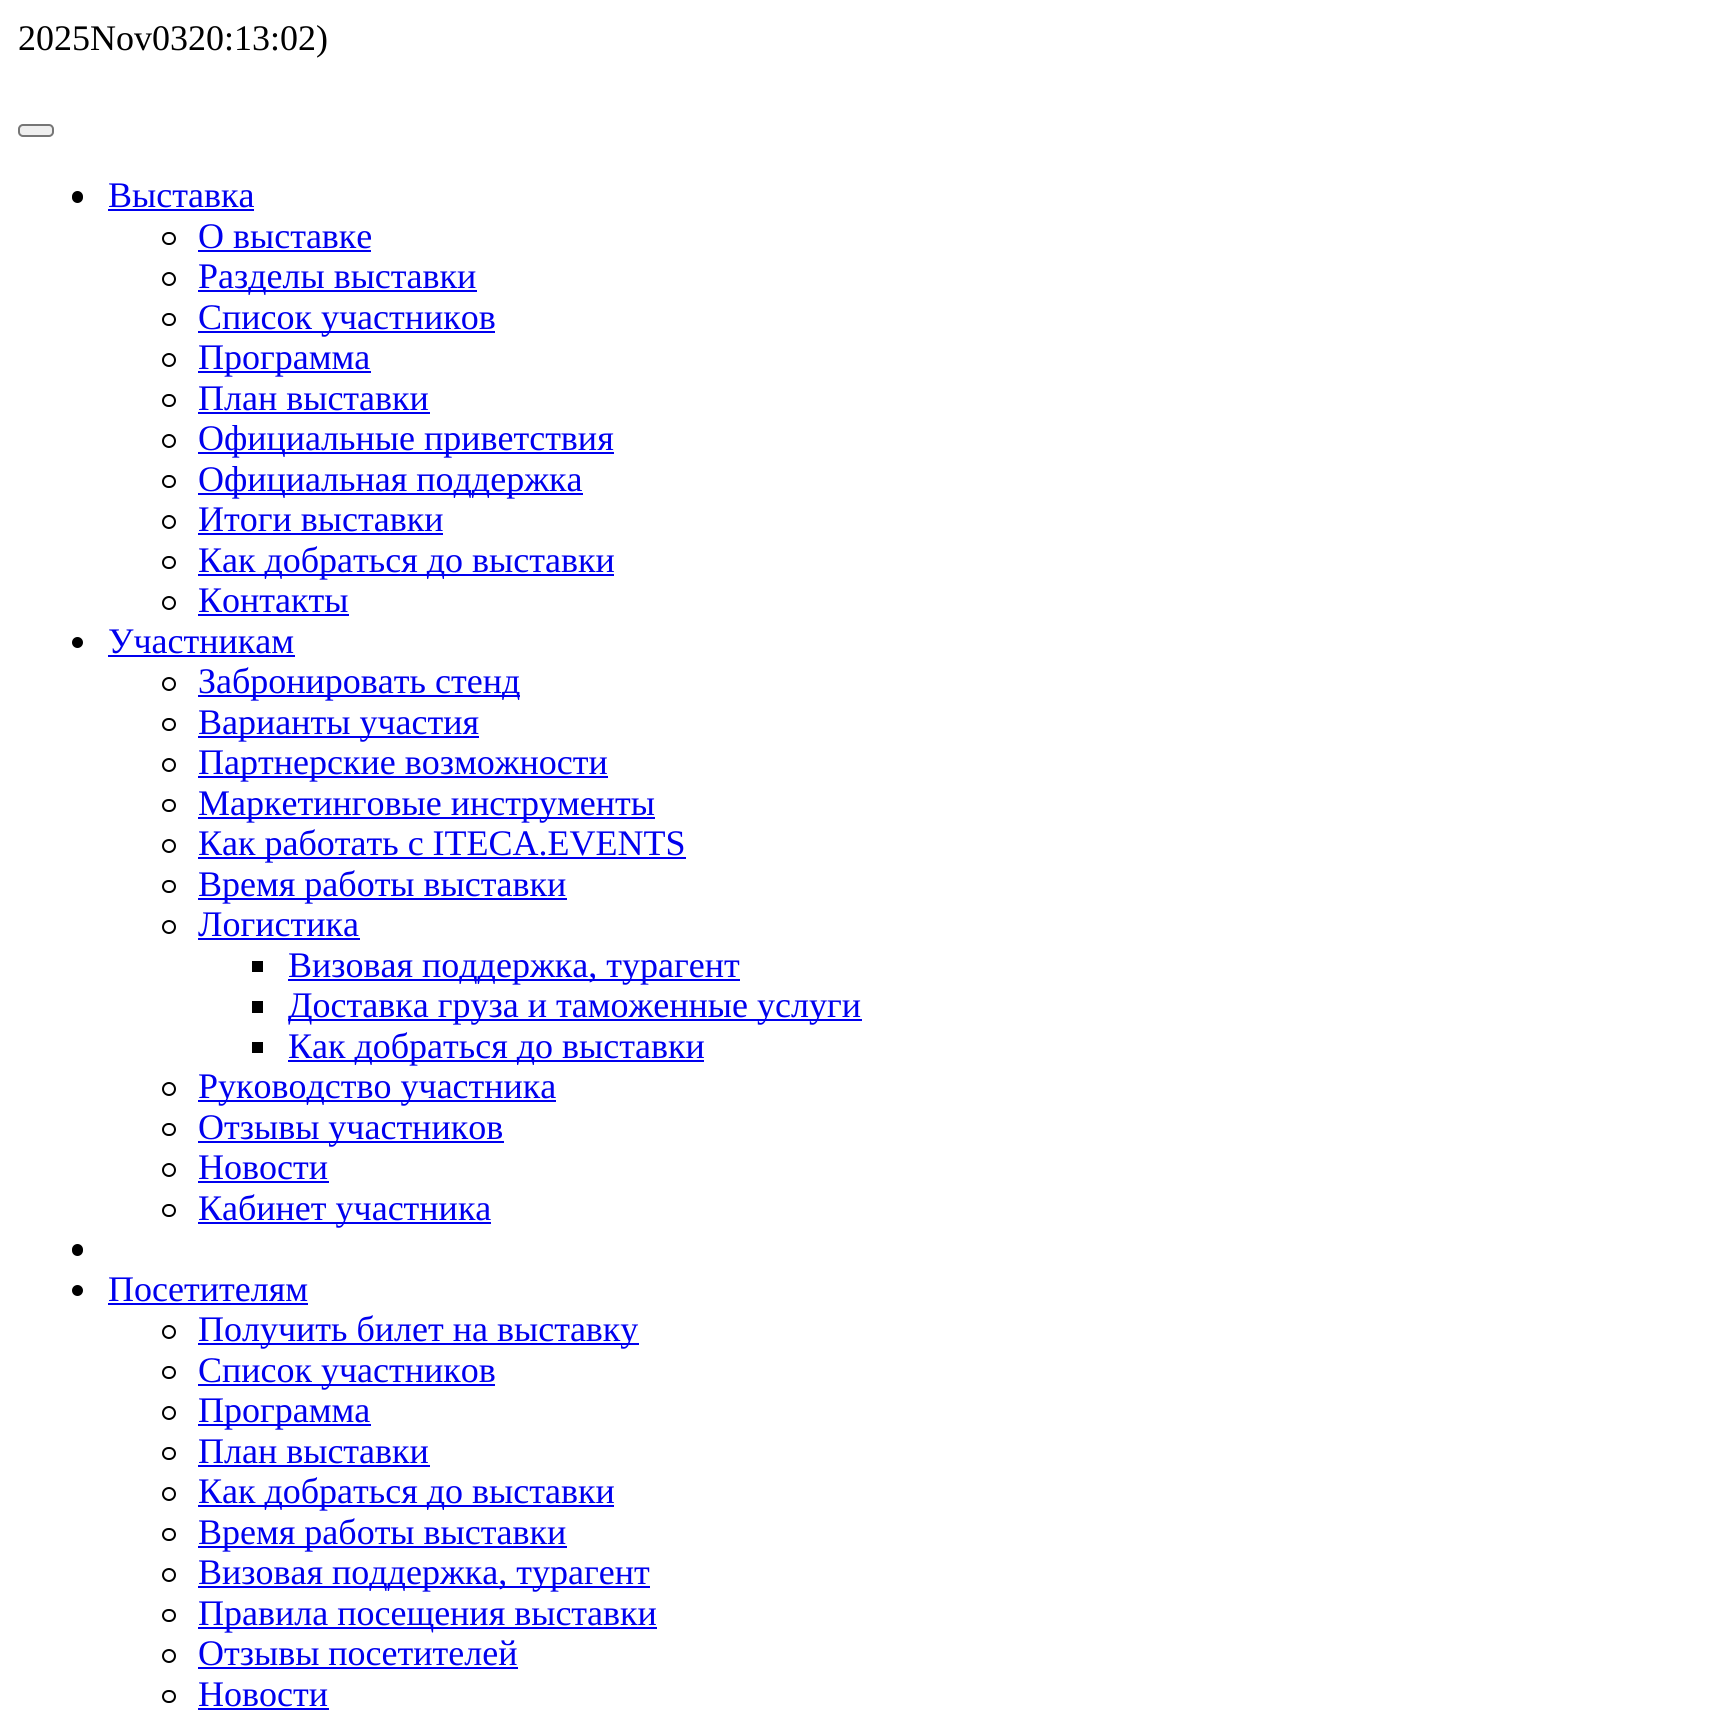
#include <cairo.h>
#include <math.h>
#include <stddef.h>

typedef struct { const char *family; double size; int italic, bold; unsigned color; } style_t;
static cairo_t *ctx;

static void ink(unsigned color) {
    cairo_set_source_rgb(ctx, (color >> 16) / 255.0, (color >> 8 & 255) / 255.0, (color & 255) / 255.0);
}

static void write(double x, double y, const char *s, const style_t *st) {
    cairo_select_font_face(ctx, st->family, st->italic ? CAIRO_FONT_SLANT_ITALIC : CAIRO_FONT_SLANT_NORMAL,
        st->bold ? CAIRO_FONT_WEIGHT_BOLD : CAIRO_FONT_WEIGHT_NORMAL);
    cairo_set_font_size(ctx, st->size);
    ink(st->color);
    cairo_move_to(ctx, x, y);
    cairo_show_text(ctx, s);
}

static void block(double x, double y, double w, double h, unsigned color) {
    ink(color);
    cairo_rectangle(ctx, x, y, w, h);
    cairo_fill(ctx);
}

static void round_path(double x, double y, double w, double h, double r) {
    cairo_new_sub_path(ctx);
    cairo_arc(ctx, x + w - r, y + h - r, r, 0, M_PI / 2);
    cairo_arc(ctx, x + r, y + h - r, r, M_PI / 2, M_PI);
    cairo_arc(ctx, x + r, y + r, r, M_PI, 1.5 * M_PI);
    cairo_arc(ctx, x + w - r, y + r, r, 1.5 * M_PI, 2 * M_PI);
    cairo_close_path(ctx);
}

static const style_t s1 = {"Liberation Serif", 36, 0, 0, 0x000000};
static const style_t s2 = {"Liberation Serif", 36, 0, 0, 0x0000ee};

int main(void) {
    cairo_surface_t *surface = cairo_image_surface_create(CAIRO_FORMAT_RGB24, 1719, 1725);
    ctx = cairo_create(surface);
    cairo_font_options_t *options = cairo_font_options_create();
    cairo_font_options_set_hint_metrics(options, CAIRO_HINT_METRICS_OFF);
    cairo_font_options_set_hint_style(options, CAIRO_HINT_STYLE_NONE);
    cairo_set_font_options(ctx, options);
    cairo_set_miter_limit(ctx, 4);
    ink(0xffffff);
    cairo_paint(ctx);
    write(18, 50, "2025Nov0320:13:02)", &s1);
    ink(0xefefef);
    round_path(19, 125, 34, 11, 4);
    cairo_fill_preserve(ctx);
    ink(0x767676);
    cairo_stroke(ctx);
    ink(0x000000);
    round_path(72, 191, 11, 12, 5.5);
    cairo_fill(ctx);
    write(108, 207, "Выставка", &s2);
    block(108, 209, 146, 2, 0x0000ee);
    round_path(163, 233, 12, 11, 5.5);
    ink(0x000000);
    cairo_stroke(ctx);
    write(198, 248, "О выставке", &s2);
    block(198, 250, 173, 2, 0x0000ee);
    cairo_new_path(ctx);
    cairo_arc(ctx, 169, 279, 6, 0, 2 * M_PI);
    ink(0x000000);
    cairo_stroke(ctx);
    block(198, 290, 279, 2, 0x0000ee);
    write(198, 288, "Разделы выставки", &s2);
    round_path(163, 314, 12, 11, 5.5);
    ink(0x000000);
    cairo_stroke(ctx);
    block(198, 331, 297, 2, 0x0000ee);
    write(198, 329, "Список участников", &s2);
    cairo_new_path(ctx);
    cairo_arc(ctx, 169, 360, 6, 0, 2 * M_PI);
    ink(0x000000);
    cairo_stroke(ctx);
    block(198, 371, 173, 2, 0x0000ee);
    write(198, 369, "Программа", &s2);
    round_path(163, 395, 12, 11, 5.5);
    ink(0x000000);
    cairo_stroke(ctx);
    write(198, 410, "План выставки", &s2);
    block(198, 412, 232, 2, 0x0000ee);
    cairo_new_path(ctx);
    cairo_arc(ctx, 169, 441, 6, 0, 2 * M_PI);
    ink(0x000000);
    cairo_stroke(ctx);
    block(198, 452, 416, 2, 0x0000ee);
    write(198, 450, "Официальные приветствия", &s2);
    round_path(163, 476, 12, 11, 5.5);
    ink(0x000000);
    cairo_stroke(ctx);
    block(198, 493, 385, 2, 0x0000ee);
    write(198, 491, "Официальная поддержка", &s2);
    cairo_new_path(ctx);
    cairo_arc(ctx, 169, 522, 6, 0, 2 * M_PI);
    ink(0x000000);
    cairo_stroke(ctx);
    write(198, 531, "Итоги выставки", &s2);
    block(198, 533, 245, 2, 0x0000ee);
    round_path(163, 557, 12, 11, 5.5);
    ink(0x000000);
    cairo_stroke(ctx);
    block(198, 574, 416, 2, 0x0000ee);
    write(198, 572, "Как добраться до выставки", &s2);
    cairo_new_path(ctx);
    cairo_arc(ctx, 169, 603, 6, 0, 2 * M_PI);
    ink(0x000000);
    cairo_stroke(ctx);
    write(198, 612, "Контакты", &s2);
    block(198, 614, 151, 2, 0x0000ee);
    ink(0x000000);
    cairo_new_path(ctx);
    cairo_arc(ctx, 77.5, 642.5, 5.5, 0, 2 * M_PI);
    cairo_fill(ctx);
    write(108, 653, "Участникам", &s2);
    block(108, 655, 187, 2, 0x0000ee);
    cairo_new_path(ctx);
    cairo_arc(ctx, 169, 684, 6, 0, 2 * M_PI);
    ink(0x000000);
    cairo_stroke(ctx);
    block(198, 695, 322, 2, 0x0000ee);
    write(198, 693, "Забронировать стенд", &s2);
    round_path(163, 719, 12, 11, 5.5);
    ink(0x000000);
    cairo_stroke(ctx);
    block(198, 736, 281, 2, 0x0000ee);
    write(198, 734, "Варианты участия", &s2);
    cairo_new_path(ctx);
    cairo_arc(ctx, 169, 765, 6, 0, 2 * M_PI);
    ink(0x000000);
    cairo_stroke(ctx);
    block(198, 776, 410, 2, 0x0000ee);
    write(198, 774, "Партнерские возможности", &s2);
    round_path(163, 800, 12, 11, 5.5);
    ink(0x000000);
    cairo_stroke(ctx);
    block(198, 817, 457, 2, 0x0000ee);
    write(198, 815, "Маркетинговые инструменты", &s2);
    cairo_new_path(ctx);
    cairo_arc(ctx, 169, 846, 6, 0, 2 * M_PI);
    ink(0x000000);
    cairo_stroke(ctx);
    block(198, 857, 488, 2, 0x0000ee);
    write(198, 855, "Как работать с ITECA.EVENTS", &s2);
    round_path(163, 881, 12, 11, 5.5);
    ink(0x000000);
    cairo_stroke(ctx);
    block(198, 898, 369, 2, 0x0000ee);
    write(198, 896, "Время работы выставки", &s2);
    cairo_new_path(ctx);
    cairo_arc(ctx, 169, 927, 6, 0, 2 * M_PI);
    ink(0x000000);
    cairo_stroke(ctx);
    write(198, 936, "Логистика", &s2);
    block(198, 938, 162, 2, 0x0000ee);
    block(252, 961, 11, 11, 0x000000);
    block(288, 979, 452, 2, 0x0000ee);
    write(288, 977, "Визовая поддержка, турагент", &s2);
    block(252, 1001, 11, 12, 0x000000);
    block(288, 1019, 574, 2, 0x0000ee);
    write(288, 1017, "Доставка груза и таможенные услуги", &s2);
    block(252, 1042, 11, 11, 0x000000);
    block(288, 1060, 416, 2, 0x0000ee);
    write(288, 1058, "Как добраться до выставки", &s2);
    cairo_new_path(ctx);
    cairo_arc(ctx, 169, 1089, 6, 0, 2 * M_PI);
    ink(0x000000);
    cairo_stroke(ctx);
    block(198, 1100, 358, 2, 0x0000ee);
    write(198, 1098, "Руководство участника", &s2);
    round_path(163, 1124, 12, 11, 5.5);
    ink(0x000000);
    cairo_stroke(ctx);
    block(198, 1141, 306, 2, 0x0000ee);
    write(198, 1139, "Отзывы участников", &s2);
    cairo_new_path(ctx);
    cairo_arc(ctx, 169, 1170, 6, 0, 2 * M_PI);
    ink(0x000000);
    cairo_stroke(ctx);
    write(198, 1179, "Новости", &s2);
    block(198, 1181, 131, 2, 0x0000ee);
    round_path(163, 1205, 12, 11, 5.5);
    ink(0x000000);
    cairo_stroke(ctx);
    block(198, 1222, 293, 2, 0x0000ee);
    write(198, 1220, "Кабинет участника", &s2);
    ink(0x000000);
    round_path(72, 1244, 11, 12, 5.5);
    cairo_fill(ctx);
    cairo_arc(ctx, 77.5, 1290.5, 5.5, 0, 2 * M_PI);
    cairo_fill(ctx);
    write(108, 1301, "Посетителям", &s2);
    block(108, 1303, 200, 2, 0x0000ee);
    cairo_new_path(ctx);
    cairo_arc(ctx, 169, 1332, 6, 0, 2 * M_PI);
    ink(0x000000);
    cairo_stroke(ctx);
    block(198, 1343, 441, 2, 0x0000ee);
    write(198, 1341, "Получить билет на выставку", &s2);
    round_path(163, 1367, 12, 11, 5.5);
    ink(0x000000);
    cairo_stroke(ctx);
    block(198, 1384, 297, 2, 0x0000ee);
    write(198, 1382, "Список участников", &s2);
    cairo_new_path(ctx);
    cairo_arc(ctx, 169, 1413, 6, 0, 2 * M_PI);
    ink(0x000000);
    cairo_stroke(ctx);
    block(198, 1424, 173, 2, 0x0000ee);
    write(198, 1422, "Программа", &s2);
    round_path(163, 1448, 12, 11, 5.5);
    ink(0x000000);
    cairo_stroke(ctx);
    write(198, 1463, "План выставки", &s2);
    block(198, 1465, 232, 2, 0x0000ee);
    cairo_new_path(ctx);
    cairo_arc(ctx, 169, 1494, 6, 0, 2 * M_PI);
    ink(0x000000);
    cairo_stroke(ctx);
    block(198, 1505, 416, 2, 0x0000ee);
    write(198, 1503, "Как добраться до выставки", &s2);
    round_path(163, 1529, 12, 11, 5.5);
    ink(0x000000);
    cairo_stroke(ctx);
    block(198, 1546, 369, 2, 0x0000ee);
    write(198, 1544, "Время работы выставки", &s2);
    cairo_new_path(ctx);
    cairo_arc(ctx, 169, 1575, 6, 0, 2 * M_PI);
    ink(0x000000);
    cairo_stroke(ctx);
    block(198, 1586, 452, 2, 0x0000ee);
    write(198, 1584, "Визовая поддержка, турагент", &s2);
    round_path(163, 1610, 12, 11, 5.5);
    ink(0x000000);
    cairo_stroke(ctx);
    block(198, 1627, 459, 2, 0x0000ee);
    write(198, 1625, "Правила посещения выставки", &s2);
    cairo_new_path(ctx);
    cairo_arc(ctx, 169, 1656, 6, 0, 2 * M_PI);
    ink(0x000000);
    cairo_stroke(ctx);
    write(198, 1665, "Отзывы посетителей", &s2);
    block(198, 1667, 320, 2, 0x0000ee);
    round_path(163, 1691, 12, 11, 5.5);
    ink(0x000000);
    cairo_stroke(ctx);
    write(198, 1706, "Новости", &s2);
    block(198, 1708, 131, 2, 0x0000ee);
    cairo_surface_write_to_png(surface, "screenshot.png");
    cairo_font_options_destroy(options);
    cairo_destroy(ctx);
    cairo_surface_destroy(surface);
    return 0;
}
